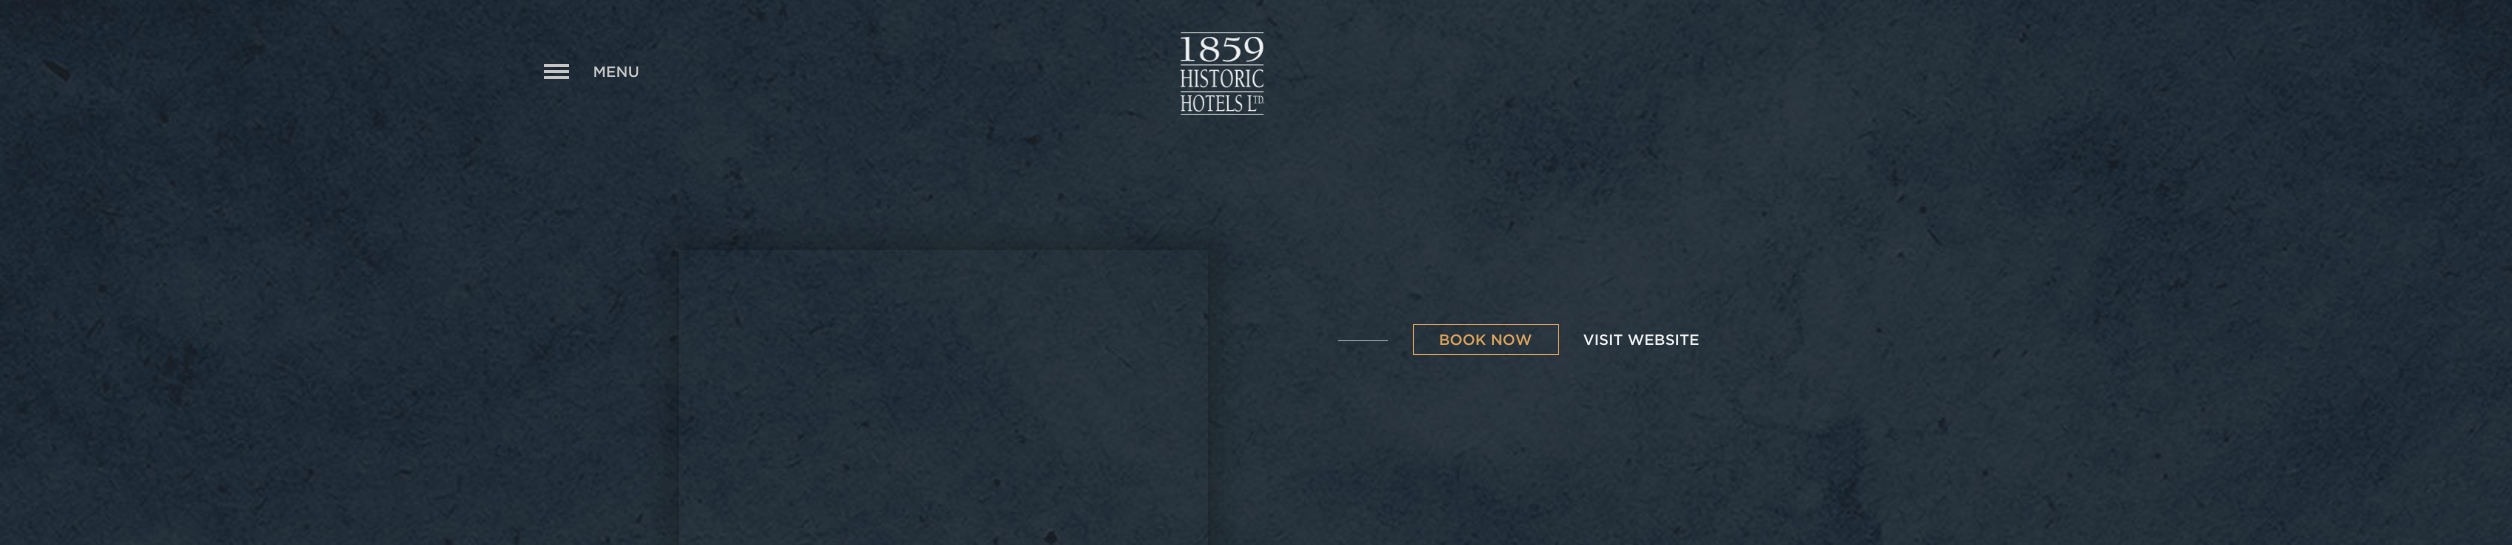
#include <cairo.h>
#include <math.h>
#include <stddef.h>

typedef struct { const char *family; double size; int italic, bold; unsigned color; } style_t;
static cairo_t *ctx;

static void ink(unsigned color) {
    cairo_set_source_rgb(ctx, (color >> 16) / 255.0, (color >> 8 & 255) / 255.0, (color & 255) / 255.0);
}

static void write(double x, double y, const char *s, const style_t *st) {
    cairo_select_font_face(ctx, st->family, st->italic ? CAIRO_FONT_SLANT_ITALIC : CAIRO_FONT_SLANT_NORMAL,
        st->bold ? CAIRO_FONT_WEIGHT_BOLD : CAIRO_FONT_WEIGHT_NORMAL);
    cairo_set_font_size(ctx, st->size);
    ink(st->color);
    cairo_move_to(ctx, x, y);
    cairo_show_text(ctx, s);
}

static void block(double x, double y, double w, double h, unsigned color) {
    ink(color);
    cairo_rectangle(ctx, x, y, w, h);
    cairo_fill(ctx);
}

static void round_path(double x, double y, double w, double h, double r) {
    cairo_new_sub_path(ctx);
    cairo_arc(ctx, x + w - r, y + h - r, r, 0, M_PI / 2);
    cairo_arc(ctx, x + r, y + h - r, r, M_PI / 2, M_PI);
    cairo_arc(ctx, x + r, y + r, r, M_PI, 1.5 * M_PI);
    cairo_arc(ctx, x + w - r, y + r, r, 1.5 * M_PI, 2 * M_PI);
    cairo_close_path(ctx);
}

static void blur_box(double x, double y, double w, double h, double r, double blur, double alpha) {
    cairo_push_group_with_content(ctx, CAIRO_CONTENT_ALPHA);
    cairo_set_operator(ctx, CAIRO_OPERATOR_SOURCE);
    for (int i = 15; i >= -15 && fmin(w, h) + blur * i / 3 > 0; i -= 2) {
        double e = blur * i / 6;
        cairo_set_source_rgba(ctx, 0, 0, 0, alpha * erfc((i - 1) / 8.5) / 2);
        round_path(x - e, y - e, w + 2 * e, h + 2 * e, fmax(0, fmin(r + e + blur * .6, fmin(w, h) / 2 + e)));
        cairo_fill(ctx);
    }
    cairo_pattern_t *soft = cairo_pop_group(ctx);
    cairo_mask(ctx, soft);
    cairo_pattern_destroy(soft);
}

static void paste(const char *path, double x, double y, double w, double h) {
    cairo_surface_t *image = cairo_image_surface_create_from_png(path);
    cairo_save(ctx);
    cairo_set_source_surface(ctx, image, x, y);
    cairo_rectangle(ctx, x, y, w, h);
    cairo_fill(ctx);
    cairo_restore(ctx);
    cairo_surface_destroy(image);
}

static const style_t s1 = {"Gotham Medium", 15, 0, 0, 0xc6c7c4};
static const style_t s2 = {"Gotham Medium", 15, 0, 0, 0xdaa25a};
static const style_t s3 = {"Gotham Medium", 15, 0, 0, 0xeef0f2};

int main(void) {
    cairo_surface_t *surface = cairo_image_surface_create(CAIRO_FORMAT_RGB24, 2512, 545);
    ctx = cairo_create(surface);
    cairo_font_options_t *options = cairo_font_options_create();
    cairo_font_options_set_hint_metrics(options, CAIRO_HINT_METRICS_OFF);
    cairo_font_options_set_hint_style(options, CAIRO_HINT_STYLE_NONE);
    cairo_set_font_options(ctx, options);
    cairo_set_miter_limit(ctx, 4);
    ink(0xffffff);
    cairo_paint(ctx);
    paste("pic1.png", 0, 0, 2512, 545);
    block(544, 64, 25, 3, 0xc6c7c4);
    block(544, 70, 25, 3, 0xc6c7c4);
    block(544, 76, 25, 3, 0xc6c7c4);
    write(593, 77, "MENU", &s1);
    paste("pic2.png", 1180, 32, 85, 83);
    cairo_save(ctx);
    cairo_set_fill_rule(ctx, CAIRO_FILL_RULE_EVEN_ODD);
    cairo_new_path(ctx);
    cairo_move_to(ctx, 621, 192);
    cairo_line_to(ctx, 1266, 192);
    cairo_line_to(ctx, 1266, 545);
    cairo_line_to(ctx, 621, 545);
    cairo_close_path(ctx);
    cairo_move_to(ctx, 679, 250);
    cairo_line_to(ctx, 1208, 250);
    cairo_line_to(ctx, 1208, 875);
    cairo_line_to(ctx, 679, 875);
    cairo_close_path(ctx);
    cairo_clip(ctx);
    ink(0x000000);
    blur_box(679, 250, 529, 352, 0, 19, 0.4);
    cairo_restore(ctx);
    block(1338, 340, 50, 1, 0x899097);
    cairo_rectangle(ctx, 1413.5, 324.5, 145, 30);
    ink(0xdaa25a);
    cairo_set_line_width(ctx, 1);
    cairo_stroke(ctx);
    write(1439, 345, "BOOK NOW", &s2);
    write(1583, 345, "VISIT WEBSITE", &s3);
    cairo_surface_write_to_png(surface, "screenshot.png");
    cairo_font_options_destroy(options);
    cairo_destroy(ctx);
    cairo_surface_destroy(surface);
    return 0;
}
